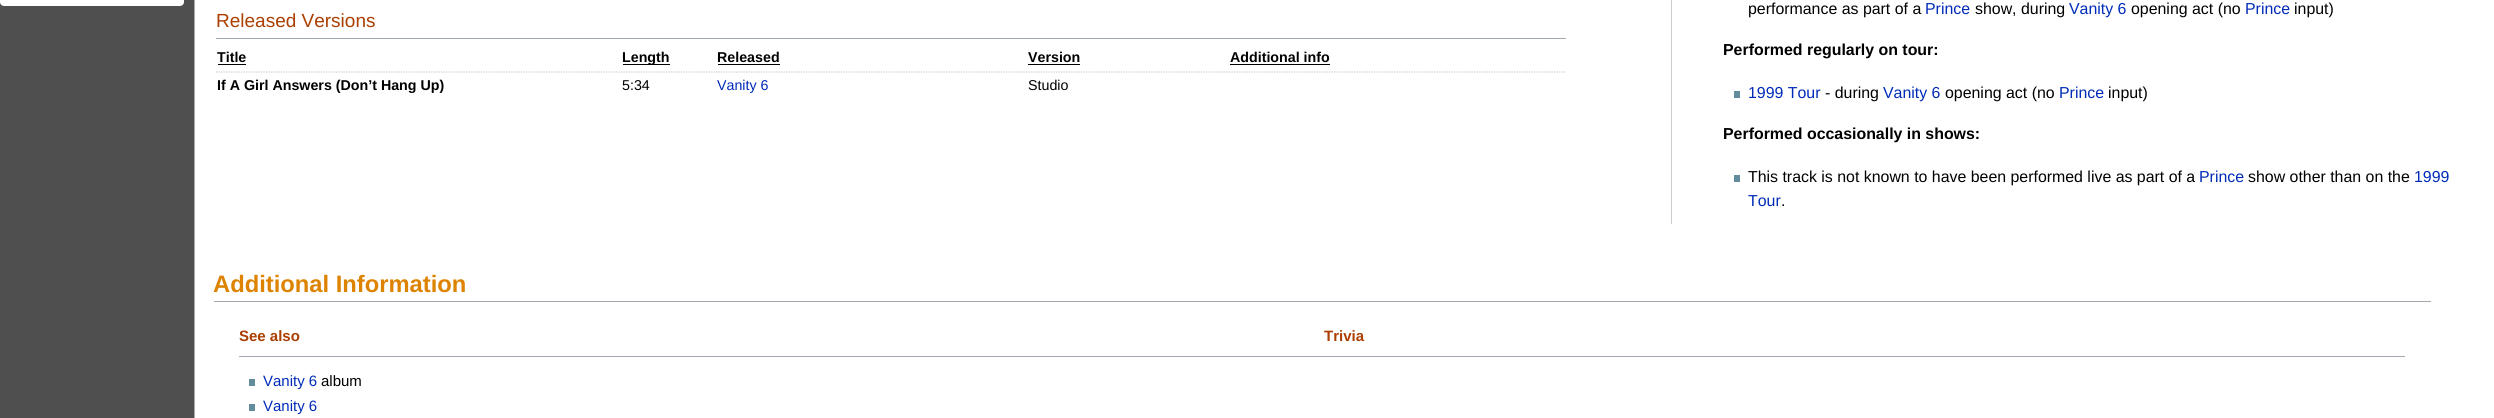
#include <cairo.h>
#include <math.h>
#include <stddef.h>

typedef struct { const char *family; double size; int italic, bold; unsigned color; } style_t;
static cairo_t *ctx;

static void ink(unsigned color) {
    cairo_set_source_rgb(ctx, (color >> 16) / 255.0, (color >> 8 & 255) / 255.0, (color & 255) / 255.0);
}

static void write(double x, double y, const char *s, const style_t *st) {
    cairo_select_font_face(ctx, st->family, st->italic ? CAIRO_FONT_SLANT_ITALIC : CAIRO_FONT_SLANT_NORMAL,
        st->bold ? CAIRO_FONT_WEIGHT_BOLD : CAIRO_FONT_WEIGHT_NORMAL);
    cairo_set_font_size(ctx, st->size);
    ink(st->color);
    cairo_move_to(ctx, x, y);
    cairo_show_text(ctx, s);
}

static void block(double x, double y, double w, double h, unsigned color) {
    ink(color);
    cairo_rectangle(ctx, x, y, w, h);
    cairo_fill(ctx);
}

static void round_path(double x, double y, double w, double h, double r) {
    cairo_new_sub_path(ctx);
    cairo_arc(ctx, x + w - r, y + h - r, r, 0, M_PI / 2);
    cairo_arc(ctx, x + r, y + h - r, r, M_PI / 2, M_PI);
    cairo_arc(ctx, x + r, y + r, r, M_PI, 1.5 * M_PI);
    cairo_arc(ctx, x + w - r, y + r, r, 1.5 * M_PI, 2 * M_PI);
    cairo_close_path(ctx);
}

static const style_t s1 = {"Liberation Sans", 19, 0, 0, 0xab3e00};
static const style_t s2 = {"Liberation Sans", 14.25, 0, 1, 0x000000};
static const style_t s3 = {"Liberation Sans", 14.25, 0, 0, 0x000000};
static const style_t s4 = {"Liberation Sans", 14.25, 0, 0, 0x002bb8};
static const style_t s5 = {"Liberation Sans", 15.9, 0, 0, 0x000000};
static const style_t s6 = {"Liberation Sans", 15.9, 0, 0, 0x002bb8};
static const style_t s7 = {"Liberation Sans", 15.9, 0, 1, 0x000000};
static const style_t s8 = {"Liberation Sans", 23.75, 0, 1, 0xde8300};
static const style_t s9 = {"Liberation Sans", 15, 0, 1, 0xab3e00};
static const style_t s10 = {"Liberation Sans", 15, 0, 0, 0x002bb8};
static const style_t s11 = {"Liberation Sans", 15, 0, 0, 0x000000};

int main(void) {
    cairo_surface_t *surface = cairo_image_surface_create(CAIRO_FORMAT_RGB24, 2494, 418);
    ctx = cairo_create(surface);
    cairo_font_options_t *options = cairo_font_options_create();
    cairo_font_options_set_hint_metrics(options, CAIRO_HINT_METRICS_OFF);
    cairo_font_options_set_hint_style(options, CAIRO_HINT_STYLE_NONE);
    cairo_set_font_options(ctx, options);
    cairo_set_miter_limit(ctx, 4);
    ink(0x4f4f4f);
    cairo_paint(ctx);
    ink(0xffffff);
    round_path(0, -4, 184, 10, 4);
    cairo_fill(ctx);
    block(195, 0, 2299, 418, 0xffffff);
    block(194, 0, 1, 418, 0xaaaaaa);
    write(216, 27, "Released Versions", &s1);
    block(216, 38, 1350, 1, 0xa2a9b1);
    write(217, 62, "Title", &s2);
    block(218, 64, 28, 1, 0x000000);
    block(623, 64, 47, 1, 0x000000);
    write(622, 62, "Length", &s2);
    write(717, 62, "Released", &s2);
    block(718, 64, 62, 1, 0x000000);
    write(1028, 62, "Version", &s2);
    block(1028, 64, 52, 1, 0x000000);
    write(1230, 62, "Additional info", &s2);
    block(1230, 64, 100, 1, 0x000000);
    cairo_new_path(ctx);
    cairo_move_to(ctx, 1229, 72);
    cairo_line_to(ctx, 1566, 72);
    ink(0xcccccc);
    cairo_set_line_width(ctx, 1.2);
    cairo_set_dash(ctx, (double[]){1.25, 1.25}, 2, 0);
    cairo_stroke(ctx);
    cairo_new_path(ctx);
    cairo_move_to(ctx, 216, 72);
    cairo_line_to(ctx, 621, 72);
    cairo_stroke(ctx);
    write(217, 90, "If A Girl Answers (Don’t Hang Up)", &s2);
    cairo_new_path(ctx);
    cairo_move_to(ctx, 621, 72);
    cairo_line_to(ctx, 716, 72);
    ink(0xcccccc);
    cairo_stroke(ctx);
    write(622, 90, "5:34", &s3);
    cairo_new_path(ctx);
    cairo_move_to(ctx, 716, 72);
    cairo_line_to(ctx, 1026, 72);
    ink(0xcccccc);
    cairo_stroke(ctx);
    write(717, 90, "Vanity 6", &s4);
    cairo_new_path(ctx);
    cairo_move_to(ctx, 1026, 72);
    cairo_line_to(ctx, 1229, 72);
    ink(0xcccccc);
    cairo_stroke(ctx);
    write(1028, 90, "Studio", &s3);
    block(1671, 0, 1, 224, 0xcccccc);
    write(1748, 14, "performance as part of a", &s5);
    write(1925, 14, "Prince", &s6);
    write(1975, 14, "show, during", &s5);
    write(2069, 14, "Vanity 6", &s6);
    write(2131, 14, "opening act (no", &s5);
    write(2245, 14, "Prince", &s6);
    write(2294, 14, "input)", &s5);
    write(1723, 55, "Performed regularly on tour:", &s7);
    block(1734, 91, 6, 7, 0x638c9c);
    write(1748, 98, "1999 Tour", &s6);
    write(1825, 98, "- during", &s5);
    write(1883, 98, "Vanity 6", &s6);
    write(1945, 98, "opening act (no", &s5);
    write(2059, 98, "Prince", &s6);
    write(2108, 98, "input)", &s5);
    write(1723, 139, "Performed occasionally in shows:", &s7);
    block(1734, 175, 6, 7, 0x638c9c);
    write(1748, 182, "This track is not known to have been performed live as part of a", &s5);
    write(2199, 182, "Prince", &s6);
    write(2248, 182, "show other than on the", &s5);
    write(2414, 182, "1999", &s6);
    write(1748, 206, "Tour", &s6);
    write(1781, 206, ".", &s5);
    write(213, 292, "Additional Information", &s8);
    block(214, 301, 2217, 1, 0xa2a9b1);
    write(239, 341, "See also", &s9);
    write(1324, 341, "Trivia", &s9);
    block(239, 356, 2166, 1, 0xa2a9b1);
    block(249, 379, 6, 7, 0x638c9c);
    write(263, 386, "Vanity 6", &s10);
    write(321, 386, "album", &s11);
    block(249, 404, 6, 7, 0x638c9c);
    write(263, 411, "Vanity 6", &s10);
    cairo_surface_write_to_png(surface, "screenshot.png");
    cairo_font_options_destroy(options);
    cairo_destroy(ctx);
    cairo_surface_destroy(surface);
    return 0;
}
